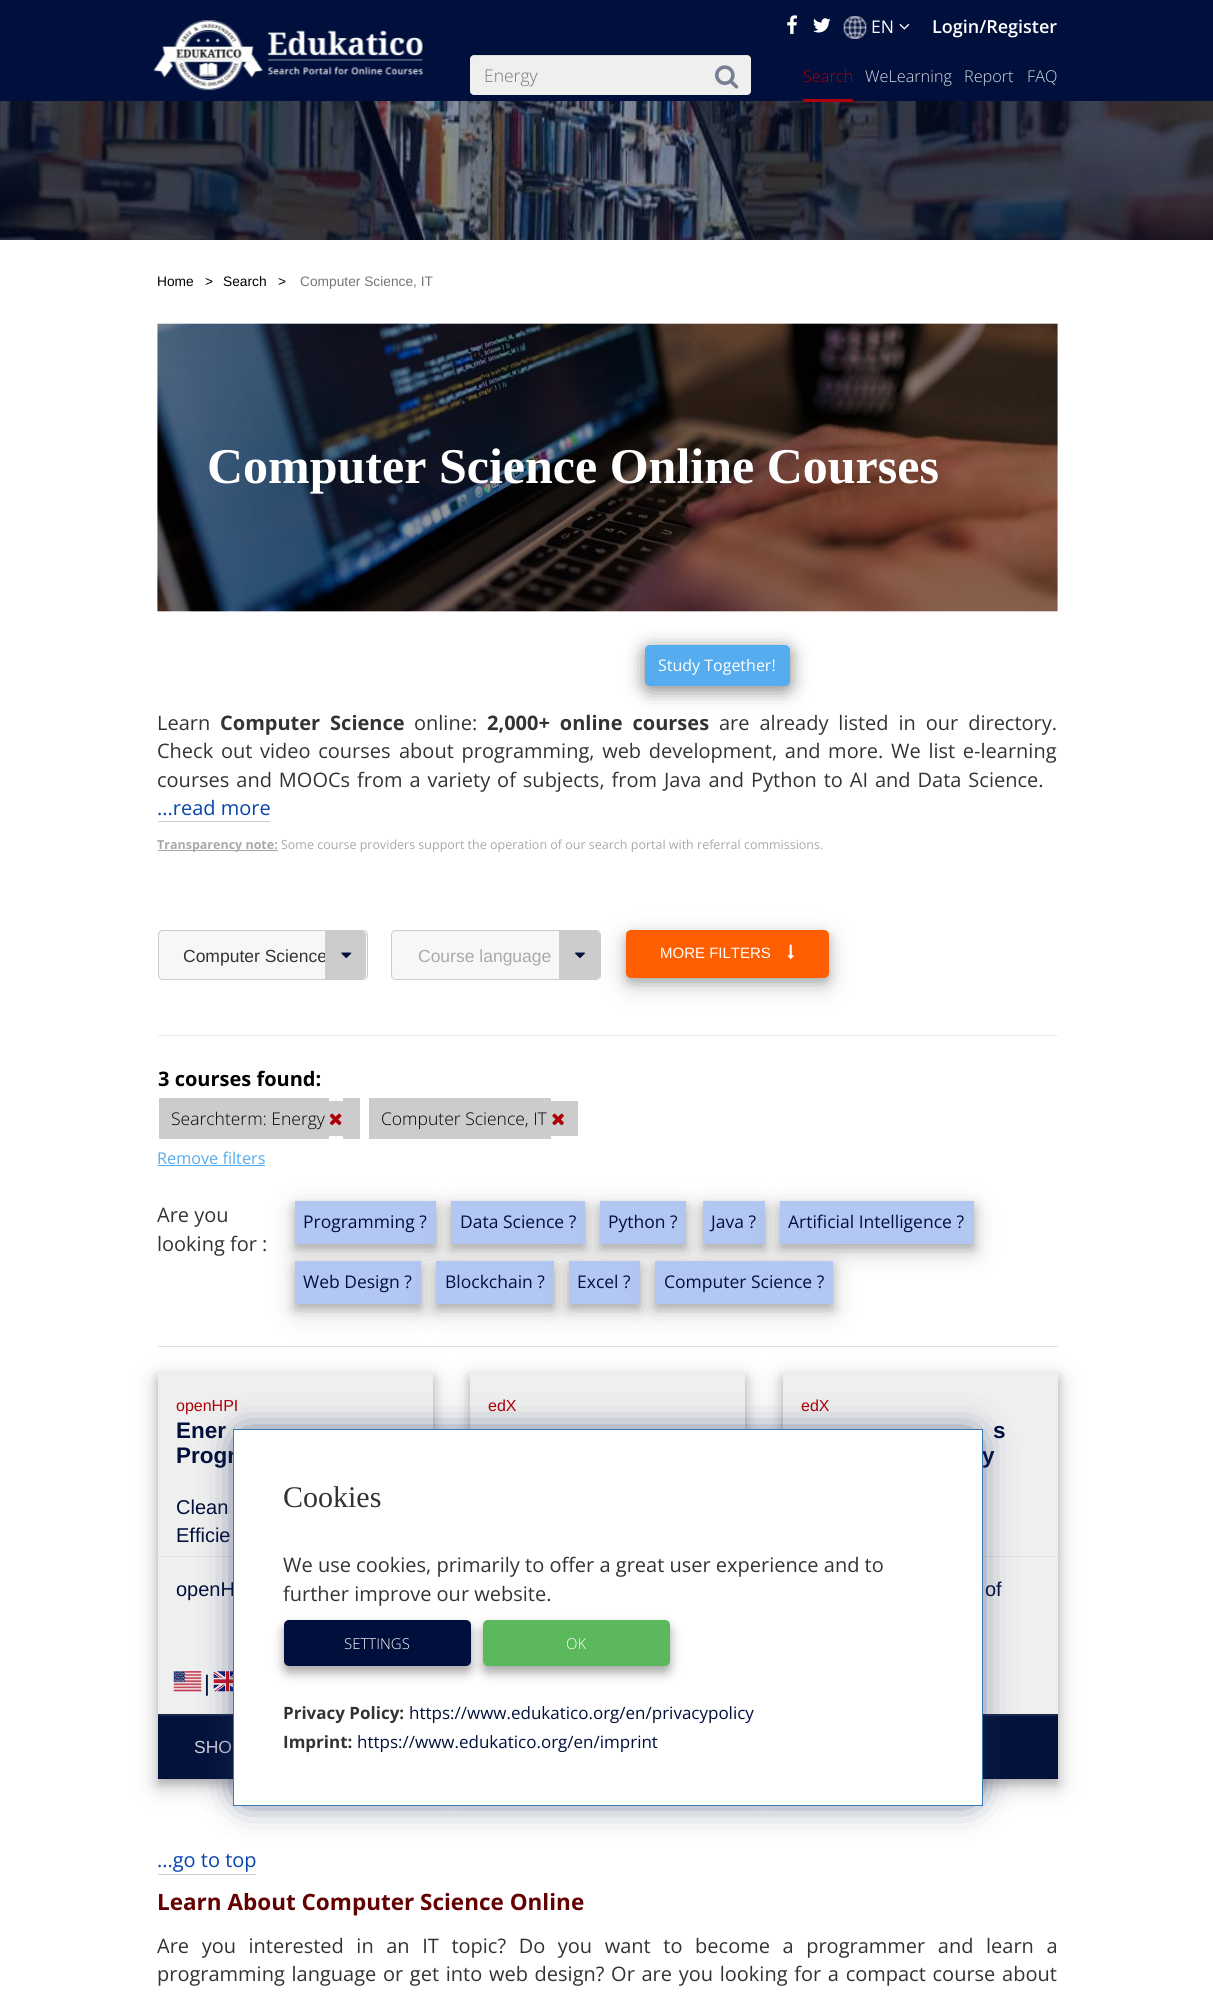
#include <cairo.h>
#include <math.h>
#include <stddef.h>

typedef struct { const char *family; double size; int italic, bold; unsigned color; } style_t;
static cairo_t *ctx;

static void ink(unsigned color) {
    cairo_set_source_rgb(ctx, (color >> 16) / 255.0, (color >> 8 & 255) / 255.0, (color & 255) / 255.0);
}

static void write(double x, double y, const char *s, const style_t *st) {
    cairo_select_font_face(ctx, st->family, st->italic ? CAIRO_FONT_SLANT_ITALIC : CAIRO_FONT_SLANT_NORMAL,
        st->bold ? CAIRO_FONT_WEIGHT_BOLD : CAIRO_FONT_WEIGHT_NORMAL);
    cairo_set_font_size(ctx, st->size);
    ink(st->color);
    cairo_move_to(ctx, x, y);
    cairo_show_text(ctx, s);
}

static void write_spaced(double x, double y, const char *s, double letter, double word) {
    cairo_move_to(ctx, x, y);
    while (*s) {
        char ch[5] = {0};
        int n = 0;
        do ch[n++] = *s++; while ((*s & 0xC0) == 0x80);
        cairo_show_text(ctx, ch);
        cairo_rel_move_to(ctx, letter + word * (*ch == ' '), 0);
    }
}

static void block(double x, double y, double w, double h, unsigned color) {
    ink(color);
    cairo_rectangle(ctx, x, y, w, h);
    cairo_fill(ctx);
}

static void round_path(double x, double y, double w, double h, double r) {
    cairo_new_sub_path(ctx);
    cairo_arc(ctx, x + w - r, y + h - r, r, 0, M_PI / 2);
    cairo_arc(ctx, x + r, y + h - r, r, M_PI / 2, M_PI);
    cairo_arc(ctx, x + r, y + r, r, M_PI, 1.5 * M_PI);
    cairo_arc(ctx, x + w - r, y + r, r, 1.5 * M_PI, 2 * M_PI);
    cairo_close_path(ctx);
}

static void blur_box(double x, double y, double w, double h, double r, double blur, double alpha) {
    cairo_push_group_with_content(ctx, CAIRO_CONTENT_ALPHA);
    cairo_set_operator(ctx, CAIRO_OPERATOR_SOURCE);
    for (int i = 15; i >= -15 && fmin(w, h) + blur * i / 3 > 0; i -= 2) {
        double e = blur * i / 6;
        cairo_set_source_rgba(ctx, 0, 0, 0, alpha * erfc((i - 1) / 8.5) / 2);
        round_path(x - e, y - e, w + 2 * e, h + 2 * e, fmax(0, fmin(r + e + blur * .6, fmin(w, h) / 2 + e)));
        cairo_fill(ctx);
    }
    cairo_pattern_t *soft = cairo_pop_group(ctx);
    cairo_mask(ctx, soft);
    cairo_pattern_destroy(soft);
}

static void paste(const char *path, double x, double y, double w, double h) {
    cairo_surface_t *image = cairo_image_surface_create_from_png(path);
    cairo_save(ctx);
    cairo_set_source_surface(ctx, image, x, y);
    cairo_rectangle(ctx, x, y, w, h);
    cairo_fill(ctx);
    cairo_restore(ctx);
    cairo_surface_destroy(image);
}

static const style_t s1 = {"Open Sans", 17.5, 0, 0, 0xffffff};
static const style_t s2 = {"Open Sans SemiBold", 18, 0, 0, 0xffffff};
static const style_t s3 = {"Open Sans Light", 17.5, 0, 0, 0x777777};
static const style_t s4 = {"Open Sans Light", 16.25, 0, 0, 0xad0009};
static const style_t s5 = {"Open Sans Light", 16.25, 0, 0, 0xd9dbe2};
static const style_t s6 = {"Liberation Sans", 13.75, 0, 0, 0x000000};
static const style_t s7 = {"Liberation Sans", 13.75, 0, 0, 0x777777};
static const style_t s8 = {"Liberation Serif", 50, 0, 1, 0xffffff};
static const style_t s9 = {"Open Sans", 16, 0, 0, 0xffffff};
static const style_t s10 = {"Open Sans", 20, 0, 0, 0x333333};
static const style_t s11 = {"Open Sans", 20, 0, 0, 0x0645ad};
static const style_t s12 = {"Open Sans", 12.5, 0, 1, 0xa9a9a9};
static const style_t s13 = {"Open Sans", 12.5, 0, 0, 0xa9a9a9};
static const style_t s14 = {"Liberation Sans", 17.5, 0, 0, 0x333333};
static const style_t s15 = {"Liberation Sans", 17.5, 0, 0, 0xa9a9a9};
static const style_t s16 = {"Liberation Sans", 15, 0, 0, 0xffffff};
static const style_t s17 = {"Open Sans", 20, 0, 1, 0x000000};
static const style_t s18 = {"Open Sans Light", 17.5, 0, 0, 0x000000};
static const style_t s19 = {"Open Sans", 16.25, 0, 0, 0x55acee};
static const style_t s20 = {"Open Sans", 17.5, 0, 0, 0x000f3b};
static const style_t s21 = {"Liberation Sans", 16, 0, 0, 0xad0009};
static const style_t s22 = {"Liberation Sans", 22.5, 0, 1, 0x000f3b};
static const style_t s23 = {"Liberation Sans", 20, 0, 0, 0x000f3b};
static const style_t s24 = {"Liberation Sans", 22.5, 0, 0, 0x000f3b};
static const style_t s25 = {"Liberation Sans", 17.5, 0, 0, 0xcdd0d8};
static const style_t s26 = {"Open Sans", 22.5, 0, 1, 0x630000};
static const style_t s27 = {"Liberation Serif", 30, 0, 0, 0x333333};
static const style_t s28 = {"Open Sans Light", 15, 0, 0, 0xffffff};
static const style_t s29 = {"Open Sans", 17, 0, 1, 0x333333};
static const style_t s30 = {"Open Sans", 17, 0, 0, 0x000f3b};

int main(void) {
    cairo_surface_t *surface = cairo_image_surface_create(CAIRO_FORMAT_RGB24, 1213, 1993);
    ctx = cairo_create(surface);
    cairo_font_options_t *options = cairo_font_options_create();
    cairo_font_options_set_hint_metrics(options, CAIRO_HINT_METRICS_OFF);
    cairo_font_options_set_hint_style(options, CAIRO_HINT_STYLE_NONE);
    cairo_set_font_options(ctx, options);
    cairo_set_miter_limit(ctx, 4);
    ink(0xffffff);
    cairo_paint(ctx);
    block(0, 0, 1213, 101, 0x000f3b);
    paste("pic1.png", 787, 15, 10, 19);
    paste("pic2.png", 813, 18, 18, 15);
    paste("pic3.png", 843, 16, 24, 23);
    write(871, 33, "EN", &s1);
    paste("pic4.png", 899, 23, 11, 7);
    write(932, 33, "Login/Register", &s2);
    paste("pic5.png", 153, 20, 270, 71);
    ink(0xefefef);
    round_path(470, 55, 281, 40, 4);
    cairo_fill(ctx);
    cairo_set_source_rgba(ctx, 0, 0, 0, 0.07);
    cairo_new_path(ctx);
    cairo_move_to(ctx, 474, 56);
    cairo_line_to(ctx, 748, 56);
    cairo_line_to(ctx, 750, 57);
    cairo_line_to(ctx, 751, 60);
    cairo_curve_to(ctx, 751, 57, 750, 55, 747, 55);
    cairo_line_to(ctx, 474, 55);
    cairo_curve_to(ctx, 471, 55, 470, 57, 470, 60);
    cairo_curve_to(ctx, 470, 58, 472, 56, 474, 56);
    cairo_close_path(ctx);
    cairo_fill(ctx);
    write(484, 82, "Energy", &s3);
    paste("pic6.png", 715, 65, 24, 24);
    paste("pic7.png", 0, 101, 1213, 139);
    block(803, 99, 50, 3, 0xad0009);
    write(803, 82, "Search", &s4);
    write(865, 82, "WeLearning", &s5);
    write(964, 82, "Report", &s5);
    write(1027, 82, "FAQ", &s5);
    write(157, 286, "Home", &s6);
    write(205, 286, ">", &s6);
    write(223, 286, "Search", &s6);
    write(278, 286, ">", &s6);
    write(300, 286, "Computer Science, IT", &s7);
    paste("pic8.png", 157, 323, 901, 289);
    write(207, 483, "Computer Science Online Courses", &s8);
    ink(0x000000);
    blur_box(645, 649, 145, 41, 5, 9.5, 0.5);
    ink(0x55acee);
    round_path(645, 645, 145, 41, 5);
    cairo_fill(ctx);
    write(658, 671, "Study Together!", &s9);
    write(157, 730, "Learn", &s10);
    cairo_select_font_face(ctx, "Open Sans", CAIRO_FONT_SLANT_NORMAL, CAIRO_FONT_WEIGHT_BOLD);
    write_spaced(220, 730, "Computer Science", 0, 4.75);
    write(414, 730, "online:", &s10);
    cairo_select_font_face(ctx, "Open Sans", CAIRO_FONT_SLANT_NORMAL, CAIRO_FONT_WEIGHT_BOLD);
    write_spaced(487, 730, "2,000+ online courses", 0, 4.75);
    cairo_select_font_face(ctx, "Open Sans", CAIRO_FONT_SLANT_NORMAL, CAIRO_FONT_WEIGHT_NORMAL);
    write_spaced(719, 730, "are already listed in our directory.", 0, 4.75);
    write_spaced(157, 758, "Check out video courses", 0, 2.5);
    write_spaced(399, 758, "about programming, web development, and more. We list e-learning", 0, 2.5);
    write_spaced(157, 787, "courses and MOOCs from a variety of subjects, from Java and Python to AI and Data Science.", 0, 1.75);
    write(157, 815, "...read more", &s11);
    block(158, 821, 112, 1, 0xcccccc);
    block(158, 850, 120, 1, 0xa9a9a9);
    write(157, 849, "Transparency note:", &s12);
    write(281, 849, "Some course providers support the operation of our search portal with referral commissions.", &s13);
    ink(0xf7f7f7);
    round_path(158.5, 930.5, 209, 49, 4.5);
    cairo_fill_preserve(ctx);
    ink(0xcccccc);
    cairo_set_line_width(ctx, 1);
    cairo_stroke(ctx);
    write(183, 962, "Computer Science", &s14);
    ink(0xcccccc);
    cairo_new_path(ctx);
    cairo_move_to(ctx, 325, 931);
    cairo_line_to(ctx, 362, 931);
    cairo_curve_to(ctx, 364, 931, 366, 933, 366, 935);
    cairo_line_to(ctx, 366, 975);
    cairo_curve_to(ctx, 366, 977, 364, 979, 362, 979);
    cairo_line_to(ctx, 325, 979);
    cairo_close_path(ctx);
    cairo_fill(ctx);
    paste("pic9.png", 341, 952, 11, 7);
    ink(0xf7f7f7);
    round_path(391.5, 930.5, 209, 49, 4.5);
    cairo_fill_preserve(ctx);
    ink(0xcccccc);
    cairo_stroke(ctx);
    write(418, 962, "Course language", &s15);
    ink(0xcccccc);
    cairo_new_path(ctx);
    cairo_move_to(ctx, 559, 931);
    cairo_line_to(ctx, 596, 931);
    cairo_curve_to(ctx, 598, 931, 600, 933, 600, 935);
    cairo_line_to(ctx, 600, 975);
    cairo_curve_to(ctx, 600, 977, 598, 979, 596, 979);
    cairo_line_to(ctx, 559, 979);
    cairo_close_path(ctx);
    cairo_fill(ctx);
    paste("pic10.png", 575, 952, 10, 6);
    ink(0x000000);
    blur_box(626, 938, 203, 47, 5, 12.5, 0.19);
    blur_box(626, 935, 203, 48, 5, 5, 0.2);
    ink(0xff5f00);
    round_path(626, 930, 203, 48, 5);
    cairo_fill(ctx);
    write(660, 958, "MORE FILTERS", &s16);
    paste("pic11.png", 787, 944, 7, 16);
    block(158, 1035, 900, 1, 0xeeeeee);
    write(158, 1086, "3 courses found:", &s17);
    block(159, 1098, 170, 41, 0xcccccc);
    block(329, 1101, 14, 35, 0xcccccc);
    block(343, 1098, 17, 41, 0xcccccc);
    write(171, 1125, "Searchterm: Energy", &s18);
    paste("pic12.png", 329, 1113, 13, 13);
    block(369, 1098, 182, 41, 0xcccccc);
    block(551, 1101, 27, 35, 0xcccccc);
    write(381, 1125, "Computer Science, IT", &s18);
    paste("pic13.png", 552, 1113, 12, 13);
    write(157, 1164, "Remove filters", &s19);
    block(158, 1165, 107, 1, 0x55acee);
    write(157, 1222, "Are you", &s10);
    write(157, 1251, "looking for :", &s10);
    ink(0x000000);
    blur_box(295, 1209, 141, 42, 0, 12.5, 0.19);
    blur_box(295, 1206, 141, 43, 0, 5, 0.2);
    block(295, 1201, 141, 43, 0xb3c7f3);
    write(303, 1228, "Programming ?", &s20);
    ink(0x000000);
    blur_box(451, 1209, 134, 42, 0, 12.5, 0.19);
    blur_box(451, 1206, 134, 43, 0, 5, 0.2);
    block(451, 1201, 134, 43, 0xb3c7f3);
    write(460, 1228, "Data Science ?", &s20);
    ink(0x000000);
    blur_box(600, 1209, 86, 42, 0, 12.5, 0.19);
    blur_box(600, 1206, 86, 43, 0, 5, 0.2);
    block(600, 1201, 86, 43, 0xb3c7f3);
    write(608, 1228, "Python ?", &s20);
    ink(0x000000);
    blur_box(703, 1209, 62, 42, 0, 12.5, 0.19);
    blur_box(703, 1206, 62, 43, 0, 5, 0.2);
    block(703, 1201, 62, 43, 0xb3c7f3);
    write(711, 1228, "Java ?", &s20);
    ink(0x000000);
    blur_box(780, 1209, 194, 42, 0, 12.5, 0.19);
    blur_box(780, 1206, 194, 43, 0, 5, 0.2);
    block(780, 1201, 194, 43, 0xb3c7f3);
    write(788, 1228, "Artificial Intelligence ?", &s20);
    block(158, 1346, 900, 1, 0xdddddd);
    ink(0x000000);
    blur_box(295, 1269, 126, 42, 0, 12.5, 0.19);
    blur_box(295, 1266, 126, 43, 0, 5, 0.2);
    block(295, 1261, 126, 43, 0xb3c7f3);
    write(303, 1288, "Web Design ?", &s20);
    ink(0x000000);
    blur_box(436, 1269, 118, 42, 0, 12.5, 0.19);
    blur_box(436, 1266, 118, 43, 0, 5, 0.2);
    block(436, 1261, 118, 43, 0xb3c7f3);
    write(445, 1288, "Blockchain ?", &s20);
    ink(0x000000);
    blur_box(569, 1269, 71, 42, 0, 12.5, 0.19);
    blur_box(569, 1266, 71, 43, 0, 5, 0.2);
    block(569, 1261, 71, 43, 0xb3c7f3);
    write(577, 1288, "Excel ?", &s20);
    ink(0x000000);
    blur_box(655, 1269, 178, 42, 0, 12.5, 0.19);
    blur_box(655, 1266, 178, 43, 0, 5, 0.2);
    block(655, 1261, 178, 43, 0xb3c7f3);
    write(664, 1288, "Computer Science ?", &s20);
    ink(0x000000);
    blur_box(158, 1380, 275, 406, 0, 12.5, 0.19);
    blur_box(158, 1378, 275, 406, 0, 5, 0.2);
    block(158, 1373, 275, 343, 0xefefef);
    block(158, 1556, 75, 1, 0xe6dede);
    write(176, 1411, "openHPI", &s21);
    write(176, 1438, "Ener", &s22);
    write(176, 1463, "Progr", &s22);
    write(176, 1514, "Clean", &s23);
    write(176, 1542, "Efficie", &s23);
    write(176, 1596, "openH", &s23);
    paste("pic14.png", 173, 1671, 29, 21);
    write(204, 1691, "|", &s24);
    paste("pic15.png", 213, 1671, 20, 21);
    block(158, 1716, 75, 63, 0x1d2a50);
    cairo_set_source_rgba(ctx, 0, 0.059, 0.227, 0.88);
    cairo_rectangle(ctx, 158, 1714, 75, 65);
    cairo_fill(ctx);
    write(194, 1753, "SHO", &s25);
    ink(0x000000);
    blur_box(470, 1380, 275, 406, 0, 12.5, 0.19);
    blur_box(470, 1378, 275, 406, 0, 5, 0.2);
    block(470, 1373, 275, 56, 0xefefef);
    write(488, 1411, "edX", &s21);
    ink(0x000000);
    blur_box(783, 1380, 275, 406, 0, 12.5, 0.19);
    blur_box(783, 1378, 275, 406, 0, 5, 0.2);
    block(783, 1373, 275, 343, 0xefefef);
    block(983, 1556, 75, 1, 0xe6dede);
    write(801, 1411, "edX", &s21);
    write(993, 1438, "s", &s22);
    write(982, 1463, "y", &s22);
    write(985, 1596, "of", &s23);
    block(983, 1716, 75, 63, 0x1d2a50);
    cairo_set_source_rgba(ctx, 0, 0.059, 0.227, 0.88);
    cairo_rectangle(ctx, 983, 1714, 75, 65);
    cairo_fill(ctx);
    write(157, 1867, "...go to top", &s11);
    block(158, 1874, 98, 1, 0xcccccc);
    write(157, 1910, "Learn About Computer Science Online", &s26);
    cairo_select_font_face(ctx, "Open Sans", CAIRO_FONT_SLANT_NORMAL, CAIRO_FONT_WEIGHT_NORMAL);
    cairo_set_font_size(ctx, 20);
    ink(0x333333);
    write_spaced(157, 1953, "Are you interested in an IT topic? Do you want to become a programmer and learn a", 0, 7.4);
    write_spaced(157, 1981, "programming language or get into web design? Or are you looking for a compact course about", 0, 1.5);
    ink(0x1f2d5d);
    blur_box(244, 1440, 727, 355, 0, 19, 1);
    ink(0xffffff);
    cairo_rectangle(ctx, 233.5, 1429.5, 749, 376);
    cairo_fill_preserve(ctx);
    ink(0x337ab7);
    cairo_stroke(ctx);
    write(283, 1507, "Cookies", &s27);
    write(283, 1572, "We use cookies, primarily to offer a great user experience and to", &s10);
    write(283, 1601, "further improve our website.", &s10);
    ink(0x000000);
    blur_box(284, 1628, 187, 46, 5, 6, 0.19);
    blur_box(284, 1625, 187, 46, 5, 5, 0.2);
    ink(0x000f3b);
    round_path(284, 1620, 187, 46, 5);
    cairo_fill(ctx);
    write(344, 1649, "SETTINGS", &s28);
    ink(0x000000);
    blur_box(483, 1628, 187, 46, 5, 6, 0.19);
    blur_box(483, 1625, 187, 46, 5, 5, 0.2);
    ink(0x5cb85c);
    round_path(483, 1620, 187, 46, 5);
    cairo_fill(ctx);
    write(566, 1649, "OK", &s28);
    write(283, 1719, "Privacy Policy:", &s29);
    write(409, 1719, "https://www.edukatico.org/en/privacypolicy", &s30);
    write(283, 1748, "Imprint:", &s29);
    write(357, 1748, "https://www.edukatico.org/en/imprint", &s30);
    cairo_surface_write_to_png(surface, "screenshot.png");
    cairo_font_options_destroy(options);
    cairo_destroy(ctx);
    cairo_surface_destroy(surface);
    return 0;
}
